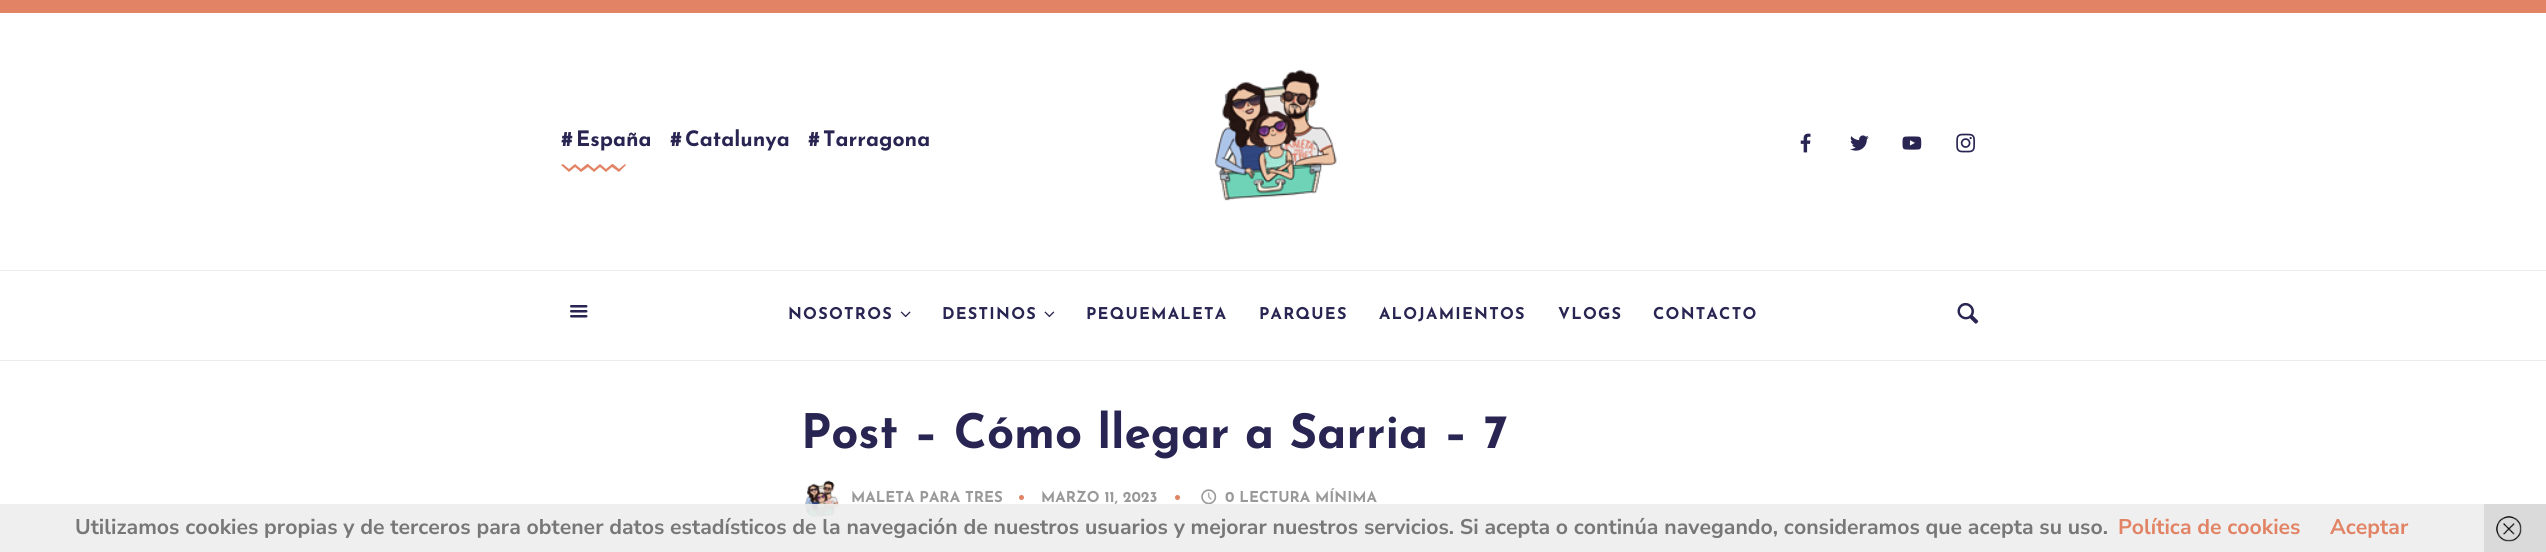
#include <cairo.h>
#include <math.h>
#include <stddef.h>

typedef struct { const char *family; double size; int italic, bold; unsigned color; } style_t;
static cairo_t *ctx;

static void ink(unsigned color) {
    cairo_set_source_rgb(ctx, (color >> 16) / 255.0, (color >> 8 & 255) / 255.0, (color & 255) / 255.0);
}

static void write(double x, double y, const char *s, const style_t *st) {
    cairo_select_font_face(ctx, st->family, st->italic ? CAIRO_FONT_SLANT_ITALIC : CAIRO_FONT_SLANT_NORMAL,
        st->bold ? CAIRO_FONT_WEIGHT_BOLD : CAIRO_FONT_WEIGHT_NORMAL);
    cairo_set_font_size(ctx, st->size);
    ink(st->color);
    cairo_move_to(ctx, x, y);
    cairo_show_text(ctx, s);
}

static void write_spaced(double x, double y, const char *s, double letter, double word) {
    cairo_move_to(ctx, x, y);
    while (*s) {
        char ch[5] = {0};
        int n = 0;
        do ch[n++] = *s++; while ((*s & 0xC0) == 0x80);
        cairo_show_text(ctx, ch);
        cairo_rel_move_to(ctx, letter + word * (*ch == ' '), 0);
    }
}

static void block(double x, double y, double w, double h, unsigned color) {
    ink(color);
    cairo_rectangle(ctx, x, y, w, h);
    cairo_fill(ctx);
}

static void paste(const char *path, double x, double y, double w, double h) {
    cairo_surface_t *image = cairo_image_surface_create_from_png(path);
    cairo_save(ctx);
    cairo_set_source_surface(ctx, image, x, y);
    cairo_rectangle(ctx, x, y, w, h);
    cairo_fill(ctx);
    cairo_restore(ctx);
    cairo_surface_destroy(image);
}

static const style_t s1 = {"Josefin Sans", 21.25, 0, 1, 0x292552};
static const style_t s2 = {"Josefin Sans", 47.5, 0, 1, 0x292552};
static const style_t s3 = {"Josefin Sans", 15, 0, 1, 0x999999};
static const style_t s4 = {"Nunito Sans", 21.25, 0, 1, 0x777777};
static const style_t s5 = {"Nunito Sans", 21.25, 0, 1, 0xe18364};

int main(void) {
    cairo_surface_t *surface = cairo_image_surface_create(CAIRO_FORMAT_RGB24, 2546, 552);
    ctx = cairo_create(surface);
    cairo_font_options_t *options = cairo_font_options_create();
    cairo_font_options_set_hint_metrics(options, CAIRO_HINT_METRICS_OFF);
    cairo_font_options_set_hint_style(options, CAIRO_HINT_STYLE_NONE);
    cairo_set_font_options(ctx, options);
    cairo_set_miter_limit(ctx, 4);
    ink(0xffffff);
    cairo_paint(ctx);
    block(0, 0, 2546, 13, 0xe18364);
    write(561, 146, "#", &s1);
    write(576, 146, "España", &s1);
    write(670, 146, "#", &s1);
    write(685, 146, "Catalunya", &s1);
    write(808, 146, "#", &s1);
    write(823, 146, "Tarragona", &s1);
    ink(0xe18364);
    cairo_new_path(ctx);
    cairo_move_to(ctx, 619, 172);
    cairo_line_to(ctx, 612, 167);
    cairo_line_to(ctx, 606, 172);
    cairo_line_to(ctx, 600, 167);
    cairo_line_to(ctx, 594, 172);
    cairo_line_to(ctx, 588, 167);
    cairo_line_to(ctx, 581, 172);
    cairo_line_to(ctx, 575, 167);
    cairo_line_to(ctx, 569, 172);
    cairo_line_to(ctx, 561, 165);
    cairo_line_to(ctx, 563, 164);
    cairo_line_to(ctx, 569, 169);
    cairo_line_to(ctx, 575, 164);
    cairo_line_to(ctx, 581, 169);
    cairo_line_to(ctx, 587, 164);
    cairo_line_to(ctx, 588, 164);
    cairo_line_to(ctx, 594, 169);
    cairo_line_to(ctx, 600, 164);
    cairo_line_to(ctx, 606, 169);
    cairo_line_to(ctx, 612, 164);
    cairo_line_to(ctx, 613, 164);
    cairo_line_to(ctx, 619, 169);
    cairo_line_to(ctx, 625, 164);
    cairo_line_to(ctx, 626, 165);
    cairo_close_path(ctx);
    cairo_fill(ctx);
    paste("pic1.png", 1214, 69, 123, 132);
    paste("pic2.png", 1800, 133, 11, 20);
    paste("pic3.png", 1850, 135, 19, 16);
    paste("pic4.png", 1902, 136, 20, 14);
    paste("pic5.png", 1956, 133, 19, 20);
    block(0, 270, 2546, 1, 0xededed);
    paste("pic6.png", 570, 305, 18, 13);
    cairo_set_font_size(ctx, 16.25);
    ink(0x292552);
    write_spaced(788, 319, "NOSOTROS", 1.25, 0);
    paste("pic7.png", 900, 311, 11, 7);
    write_spaced(942, 319, "DESTINOS", 1.25, 0);
    paste("pic8.png", 1044, 311, 11, 7);
    write_spaced(1086, 319, "PEQUEMALETA", 1.25, 0);
    write_spaced(1259, 319, "PARQUES", 1.25, 0);
    write_spaced(1379, 319, "ALOJAMIENTOS", 1.25, 0);
    write_spaced(1558, 319, "VLOGS", 1.25, 0);
    write_spaced(1653, 319, "CONTACTO", 1.25, 0);
    paste("pic9.png", 1957, 302, 22, 22);
    block(0, 360, 2546, 1, 0xededed);
    write(801, 448, "Post – Cómo llegar a Sarria – 7", &s2);
    paste("pic10.png", 804, 480, 36, 37);
    write(851, 502, "MALETA PARA TRES", &s3);
    ink(0xe18364);
    cairo_new_path(ctx);
    cairo_arc(ctx, 1021.5, 497.5, 2.5, 0, 2 * M_PI);
    cairo_fill(ctx);
    write(1041, 502, "MARZO 11, 2023", &s3);
    ink(0xe18364);
    cairo_new_path(ctx);
    cairo_arc(ctx, 1177.5, 497.5, 2.5, 0, 2 * M_PI);
    cairo_fill(ctx);
    paste("pic11.png", 1201, 489, 16, 16);
    write(1225, 502, "0 LECTURA MÍNIMA", &s3);
    cairo_set_source_rgba(ctx, 0.933, 0.933, 0.933, 0.9);
    cairo_rectangle(ctx, 0, 504, 2484, 48);
    cairo_fill(ctx);
    write(75, 534, "Utilizamos cookies propias y de terceros para obtener datos estadísticos de la navegación de nuestros usuarios y mejorar nuestros servicios. Si acepta o continúa navegando, consideramos que acepta su uso.", &s4);
    write(2118, 534, "Política de cookies", &s5);
    write(2330, 534, "Aceptar", &s5);
    block(2484, 504, 62, 48, 0xdadada);
    paste("pic12.png", 2496, 516, 26, 26);
    cairo_surface_write_to_png(surface, "screenshot.png");
    cairo_font_options_destroy(options);
    cairo_destroy(ctx);
    cairo_surface_destroy(surface);
    return 0;
}
